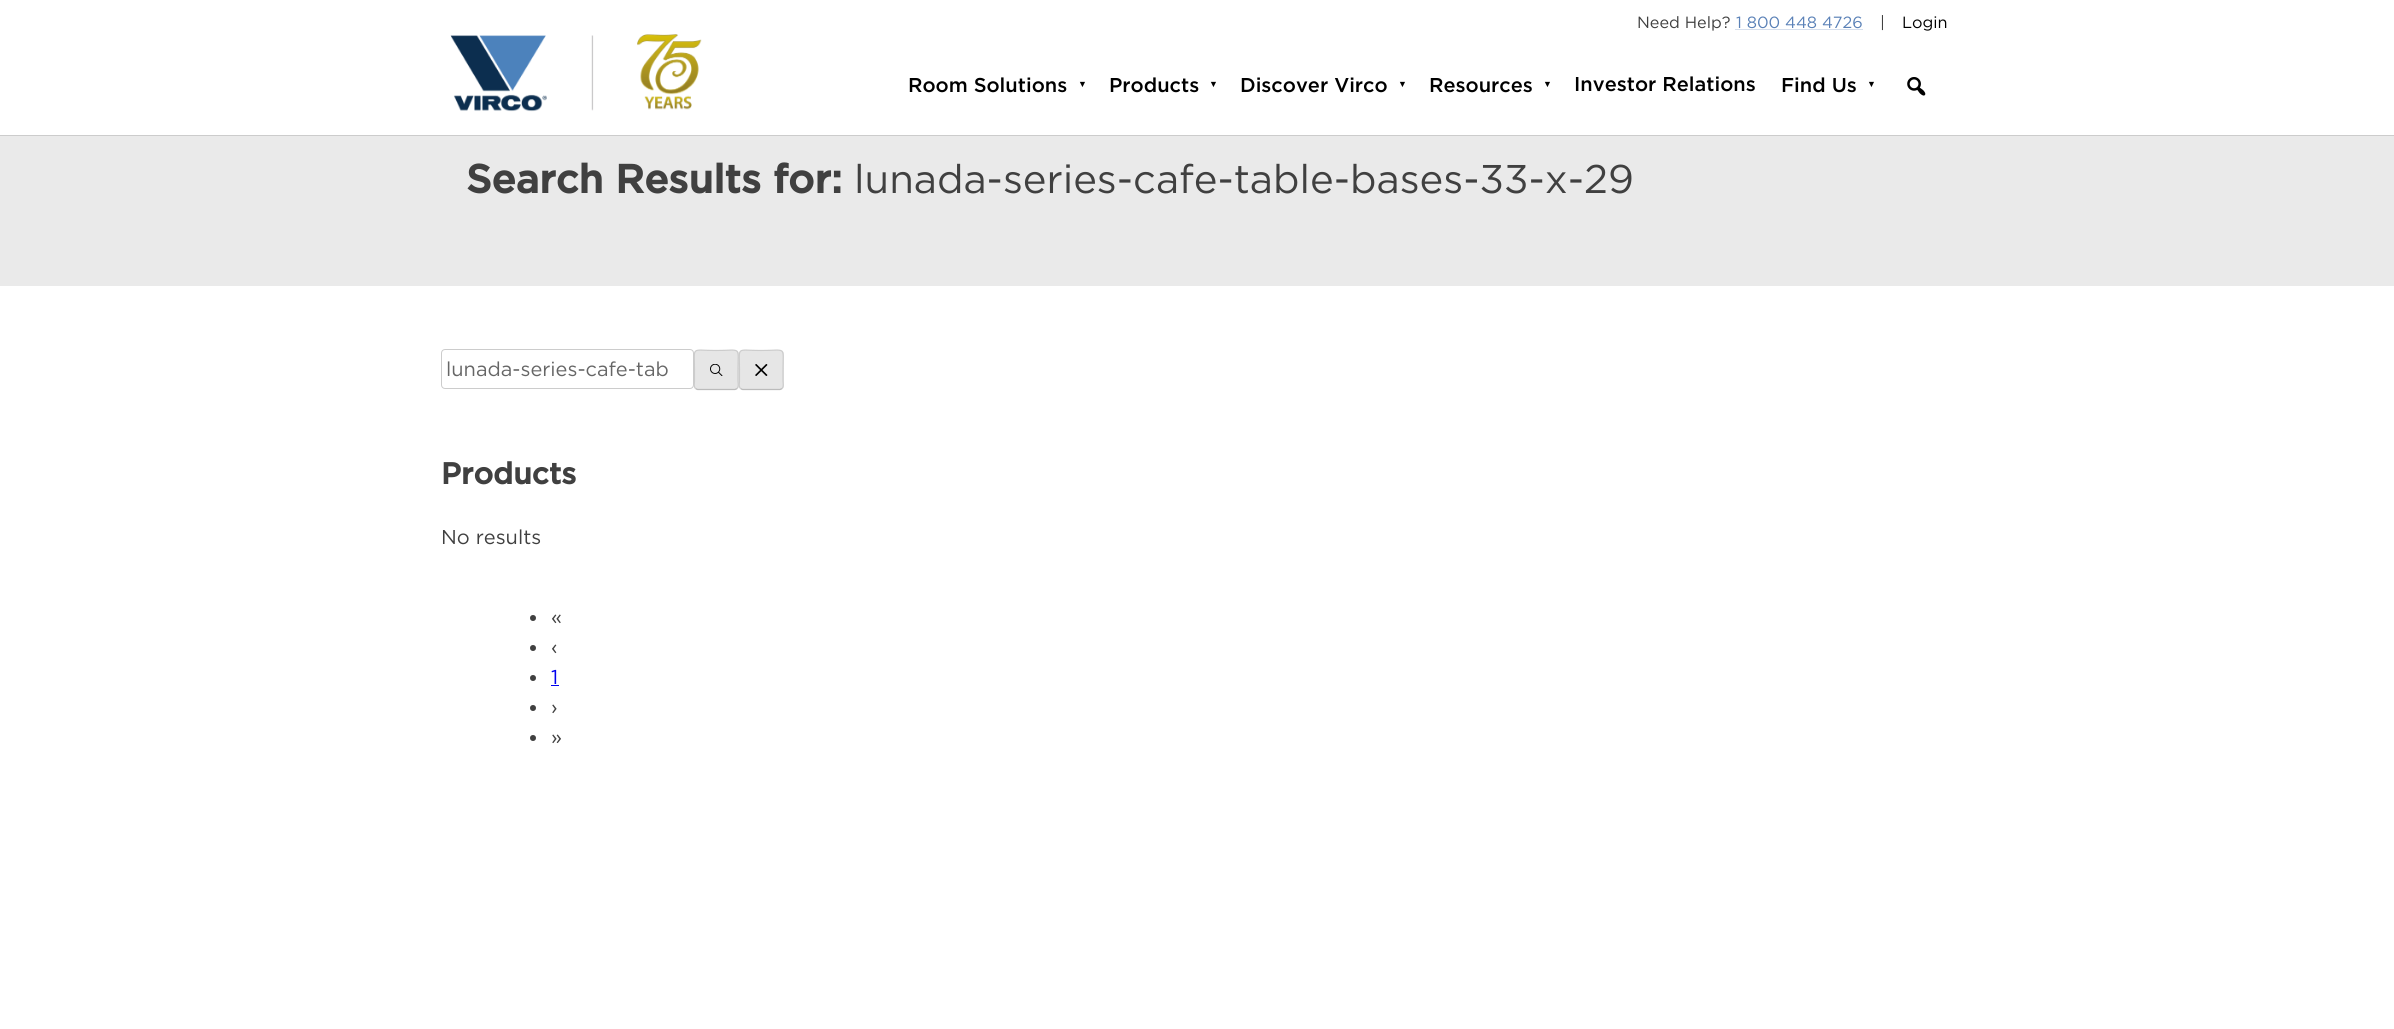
#include <cairo.h>
#include <math.h>
#include <stddef.h>

typedef struct { const char *family; double size; int italic, bold; unsigned color; } style_t;
static cairo_t *ctx;

static void ink(unsigned color) {
    cairo_set_source_rgb(ctx, (color >> 16) / 255.0, (color >> 8 & 255) / 255.0, (color & 255) / 255.0);
}

static void write(double x, double y, const char *s, const style_t *st) {
    cairo_select_font_face(ctx, st->family, st->italic ? CAIRO_FONT_SLANT_ITALIC : CAIRO_FONT_SLANT_NORMAL,
        st->bold ? CAIRO_FONT_WEIGHT_BOLD : CAIRO_FONT_WEIGHT_NORMAL);
    cairo_set_font_size(ctx, st->size);
    ink(st->color);
    cairo_move_to(ctx, x, y);
    cairo_show_text(ctx, s);
}

static void block(double x, double y, double w, double h, unsigned color) {
    ink(color);
    cairo_rectangle(ctx, x, y, w, h);
    cairo_fill(ctx);
}

static void round_path(double x, double y, double w, double h, double r) {
    cairo_new_sub_path(ctx);
    cairo_arc(ctx, x + w - r, y + h - r, r, 0, M_PI / 2);
    cairo_arc(ctx, x + r, y + h - r, r, M_PI / 2, M_PI);
    cairo_arc(ctx, x + r, y + r, r, M_PI, 1.5 * M_PI);
    cairo_arc(ctx, x + w - r, y + r, r, 1.5 * M_PI, 2 * M_PI);
    cairo_close_path(ctx);
}

static void paste(const char *path, double x, double y, double w, double h) {
    cairo_surface_t *image = cairo_image_surface_create_from_png(path);
    cairo_save(ctx);
    cairo_set_source_surface(ctx, image, x, y);
    cairo_rectangle(ctx, x, y, w, h);
    cairo_fill(ctx);
    cairo_restore(ctx);
    cairo_surface_destroy(image);
}

static const style_t s1 = {"Gotham", 16.25, 0, 0, 0x404040};
static const style_t s2 = {"Gotham", 16.25, 0, 0, 0x5a81b7};
static const style_t s3 = {"Gotham", 16.25, 0, 0, 0x000000};
static const style_t s4 = {"Gotham Medium", 20, 0, 0, 0x000000};
static const style_t s5 = {"Liberation Serif", 9, 0, 0, 0x000000};
static const style_t s6 = {"Gotham", 40, 0, 1, 0x404040};
static const style_t s7 = {"Gotham", 40, 0, 0, 0x404040};
static const style_t s8 = {"Gotham", 20, 0, 0, 0x666666};
static const style_t s9 = {"Gotham", 30, 0, 1, 0x404040};
static const style_t s10 = {"Gotham", 20, 0, 0, 0x404040};
static const style_t s11 = {"Gotham", 20, 0, 0, 0x0000ee};

int main(void) {
    cairo_surface_t *surface = cairo_image_surface_create(CAIRO_FORMAT_RGB24, 2394, 1029);
    ctx = cairo_create(surface);
    cairo_font_options_t *options = cairo_font_options_create();
    cairo_font_options_set_hint_metrics(options, CAIRO_HINT_METRICS_OFF);
    cairo_font_options_set_hint_style(options, CAIRO_HINT_STYLE_NONE);
    cairo_set_font_options(ctx, options);
    cairo_set_miter_limit(ctx, 4);
    ink(0xffffff);
    cairo_paint(ctx);
    block(0, 135, 2394, 1, 0xcccccc);
    paste("pic1.png", 450, 34, 252, 78);
    write(1637, 28, "Need Help?", &s1);
    write(1736, 28, "1 800 448 4726", &s2);
    block(1735, 29, 128, 1, 0xd6dfed);
    write(1880, 28, "|", &s1);
    write(1902, 28, "Login", &s3);
    write(908, 92, "Room Solutions", &s4);
    write(1078, 87, "▼", &s5);
    write(1109, 92, "Products", &s4);
    write(1209, 87, "▼", &s5);
    write(1240, 92, "Discover Virco", &s4);
    write(1398, 87, "▼", &s5);
    write(1429, 92, "Resources", &s4);
    write(1543, 87, "▼", &s5);
    write(1574, 91, "Investor Relations", &s4);
    write(1781, 92, "Find Us", &s4);
    write(1867, 87, "▼", &s5);
    paste("pic2.png", 1907, 77, 19, 19);
    block(0, 136, 2394, 150, 0xeaeaea);
    write(466, 193, "Search Results for:", &s6);
    write(854, 193, "lunada-series-cafe-table-bases-33-x-29", &s7);
    round_path(441.5, 349.5, 252, 39, 3.5);
    ink(0xcccccc);
    cairo_set_line_width(ctx, 1);
    cairo_stroke(ctx);
    write(446, 376, "lunada-series-cafe-tab", &s8);
    ink(0xe6e6e6);
    round_path(694, 350, 45, 40, 4);
    cairo_fill(ctx);
    cairo_new_path(ctx);
    cairo_move_to(ctx, 737, 388.5);
    cairo_line_to(ctx, 735, 389.5);
    cairo_line_to(ctx, 697.5, 389.5);
    cairo_line_to(ctx, 695.5, 388.5);
    ink(0xbbbbbb);
    cairo_set_line_width(ctx, 1.2);
    cairo_stroke(ctx);
    cairo_new_path(ctx);
    cairo_move_to(ctx, 695.5, 388.5);
    cairo_curve_to(ctx, 693.5, 386.5, 694.5, 382.5, 694.5, 381);
    cairo_line_to(ctx, 694.5, 370);
    cairo_curve_to(ctx, 694.5, 345.5, 690.5, 350.5, 716, 350.5);
    cairo_curve_to(ctx, 742, 350.5, 738, 345.5, 738, 370);
    cairo_line_to(ctx, 738, 381);
    cairo_curve_to(ctx, 738, 382.5, 739, 386.5, 737, 388.5);
    ink(0xcccccc);
    cairo_stroke(ctx);
    paste("pic3.png", 710, 364, 13, 12);
    ink(0xe6e6e6);
    round_path(739, 350, 45, 40, 4);
    cairo_fill(ctx);
    cairo_new_path(ctx);
    cairo_move_to(ctx, 782, 388.5);
    cairo_line_to(ctx, 780, 389.5);
    cairo_line_to(ctx, 742.5, 389.5);
    cairo_line_to(ctx, 740.5, 388.5);
    ink(0xbbbbbb);
    cairo_stroke(ctx);
    cairo_new_path(ctx);
    cairo_move_to(ctx, 740.5, 388.5);
    cairo_curve_to(ctx, 738.5, 386.5, 739.5, 382.5, 739.5, 381);
    cairo_line_to(ctx, 739.5, 370);
    cairo_curve_to(ctx, 739.5, 345.5, 735.5, 350.5, 761, 350.5);
    cairo_curve_to(ctx, 787, 350.5, 783, 345.5, 783, 370);
    cairo_line_to(ctx, 783, 381);
    cairo_curve_to(ctx, 783, 382.5, 784, 386.5, 782, 388.5);
    ink(0xcccccc);
    cairo_stroke(ctx);
    paste("pic4.png", 755, 364, 13, 12);
    write(441, 484, "Products", &s9);
    write(441, 544, "No results", &s10);
    cairo_new_path(ctx);
    cairo_arc(ctx, 533, 618, 3, 0, 2 * M_PI);
    cairo_fill(ctx);
    write(551, 624, "«", &s10);
    cairo_new_path(ctx);
    cairo_arc(ctx, 533, 648, 3, 0, 2 * M_PI);
    cairo_fill(ctx);
    write(551, 654, "‹", &s10);
    cairo_new_path(ctx);
    cairo_arc(ctx, 533, 678, 3, 0, 2 * M_PI);
    cairo_fill(ctx);
    write(551, 684, "1", &s11);
    block(551, 685, 8, 1, 0x0000ee);
    ink(0x404040);
    cairo_new_path(ctx);
    cairo_arc(ctx, 533, 708, 3, 0, 2 * M_PI);
    cairo_fill(ctx);
    write(551, 714, "›", &s10);
    cairo_new_path(ctx);
    cairo_arc(ctx, 533, 738, 3, 0, 2 * M_PI);
    cairo_fill(ctx);
    write(551, 744, "»", &s10);
    cairo_surface_write_to_png(surface, "screenshot.png");
    cairo_font_options_destroy(options);
    cairo_destroy(ctx);
    cairo_surface_destroy(surface);
    return 0;
}
